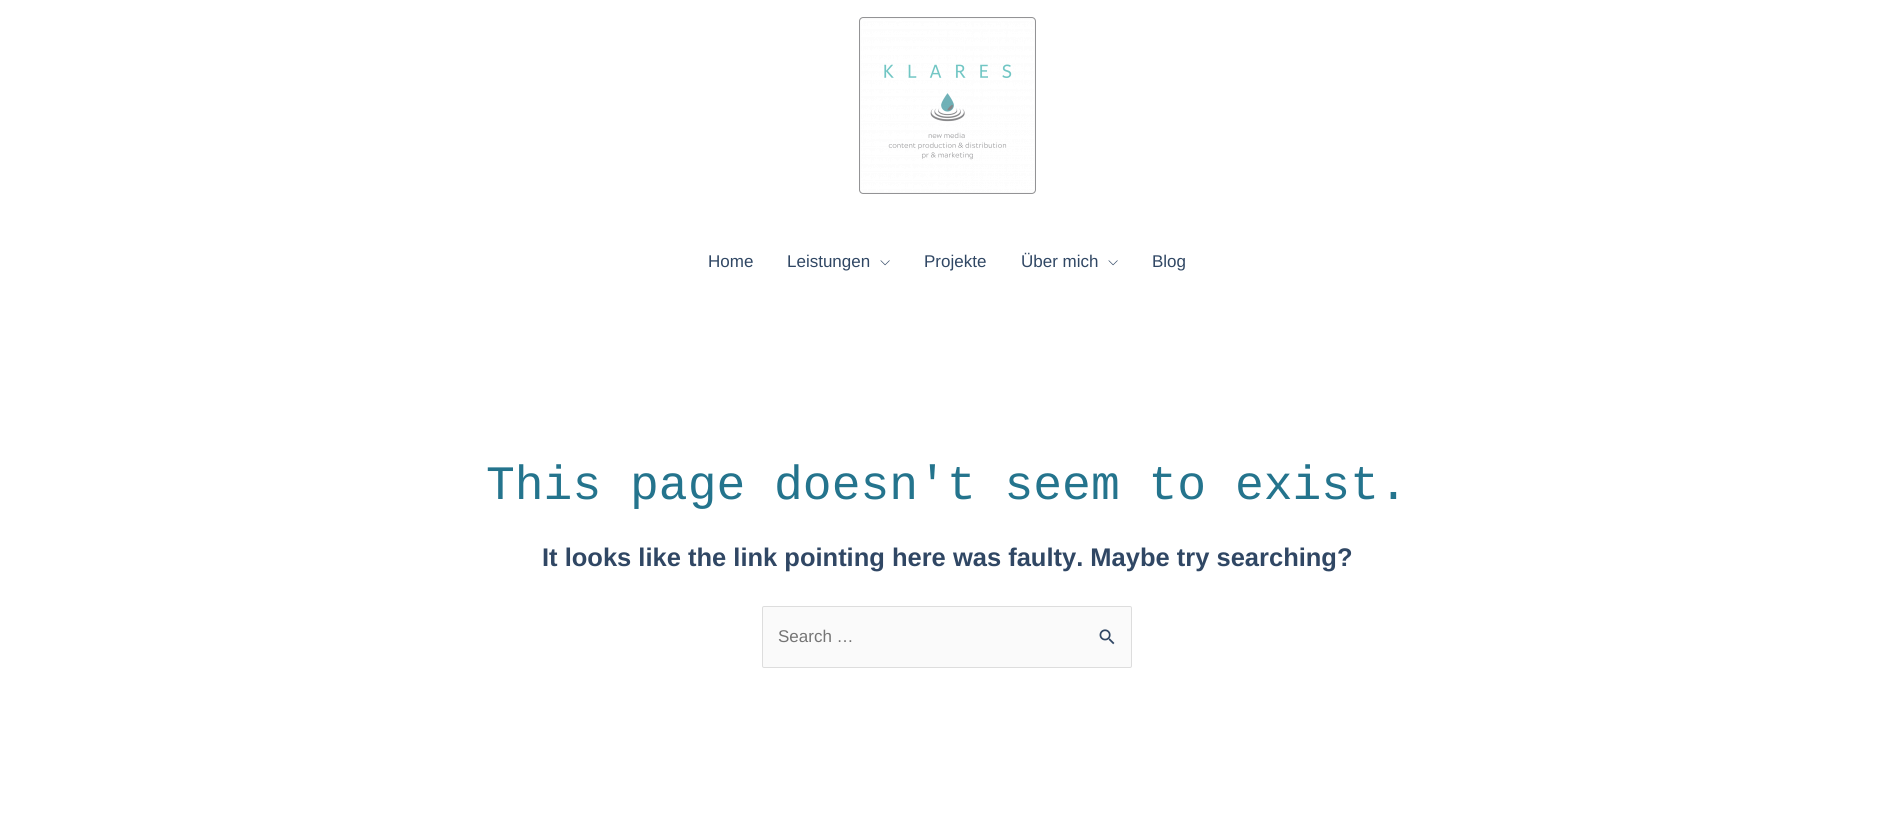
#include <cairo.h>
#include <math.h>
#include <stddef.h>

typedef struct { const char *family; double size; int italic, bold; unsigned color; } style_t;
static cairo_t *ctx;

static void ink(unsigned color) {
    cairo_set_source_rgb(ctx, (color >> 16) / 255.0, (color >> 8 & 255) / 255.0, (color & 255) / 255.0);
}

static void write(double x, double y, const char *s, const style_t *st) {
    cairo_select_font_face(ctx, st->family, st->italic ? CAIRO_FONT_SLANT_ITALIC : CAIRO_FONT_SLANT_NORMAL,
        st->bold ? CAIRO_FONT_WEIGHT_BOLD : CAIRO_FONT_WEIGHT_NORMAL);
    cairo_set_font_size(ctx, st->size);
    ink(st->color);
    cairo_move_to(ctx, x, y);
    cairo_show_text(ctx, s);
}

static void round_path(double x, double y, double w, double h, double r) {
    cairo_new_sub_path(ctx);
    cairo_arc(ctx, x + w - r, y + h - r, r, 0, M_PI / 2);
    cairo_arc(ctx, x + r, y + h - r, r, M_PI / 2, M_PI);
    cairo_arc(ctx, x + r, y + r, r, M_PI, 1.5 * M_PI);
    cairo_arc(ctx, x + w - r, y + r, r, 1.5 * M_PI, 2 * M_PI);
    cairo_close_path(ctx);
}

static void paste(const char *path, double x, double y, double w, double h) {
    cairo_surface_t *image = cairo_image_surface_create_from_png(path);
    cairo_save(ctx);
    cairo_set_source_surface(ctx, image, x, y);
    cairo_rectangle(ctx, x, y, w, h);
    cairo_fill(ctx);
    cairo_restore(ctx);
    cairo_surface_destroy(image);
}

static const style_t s1 = {"Liberation Sans", 17, 0, 0, 0x304764};
static const style_t s2 = {"Liberation Mono", 48, 0, 0, 0x24748d};
static const style_t s3 = {"Liberation Sans", 25.5, 0, 1, 0x304764};
static const style_t s4 = {"Liberation Sans", 17, 0, 0, 0x757575};

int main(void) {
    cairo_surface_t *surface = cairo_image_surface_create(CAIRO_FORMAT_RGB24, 1894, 827);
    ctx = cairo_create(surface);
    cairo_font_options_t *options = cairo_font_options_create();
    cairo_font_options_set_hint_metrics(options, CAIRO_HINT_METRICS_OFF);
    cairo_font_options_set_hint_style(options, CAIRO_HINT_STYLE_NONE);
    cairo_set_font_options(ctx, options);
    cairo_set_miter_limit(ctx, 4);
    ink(0xffffff);
    cairo_paint(ctx);
    paste("pic1.png", 859, 17, 177, 177);
    write(708, 267, "Home", &s1);
    write(787, 267, "Leistungen", &s1);
    paste("pic2.png", 880, 260, 10, 6);
    write(924, 267, "Projekte", &s1);
    write(1021, 267, "Über mich", &s1);
    paste("pic2.png", 1108, 260, 10, 6);
    write(1152, 267, "Blog", &s1);
    write(486, 499, "This page doesn't seem to exist.", &s2);
    write(542, 566, "It looks like the link pointing here was faulty. Maybe try searching?", &s3);
    ink(0xfafafa);
    round_path(762.5, 606.5, 369, 61, 1.5);
    cairo_fill_preserve(ctx);
    ink(0xdddddd);
    cairo_set_line_width(ctx, 1);
    cairo_stroke(ctx);
    write(778, 642, "Search …", &s4);
    paste("pic3.png", 1099, 629, 16, 16);
    cairo_surface_write_to_png(surface, "screenshot.png");
    cairo_font_options_destroy(options);
    cairo_destroy(ctx);
    cairo_surface_destroy(surface);
    return 0;
}
